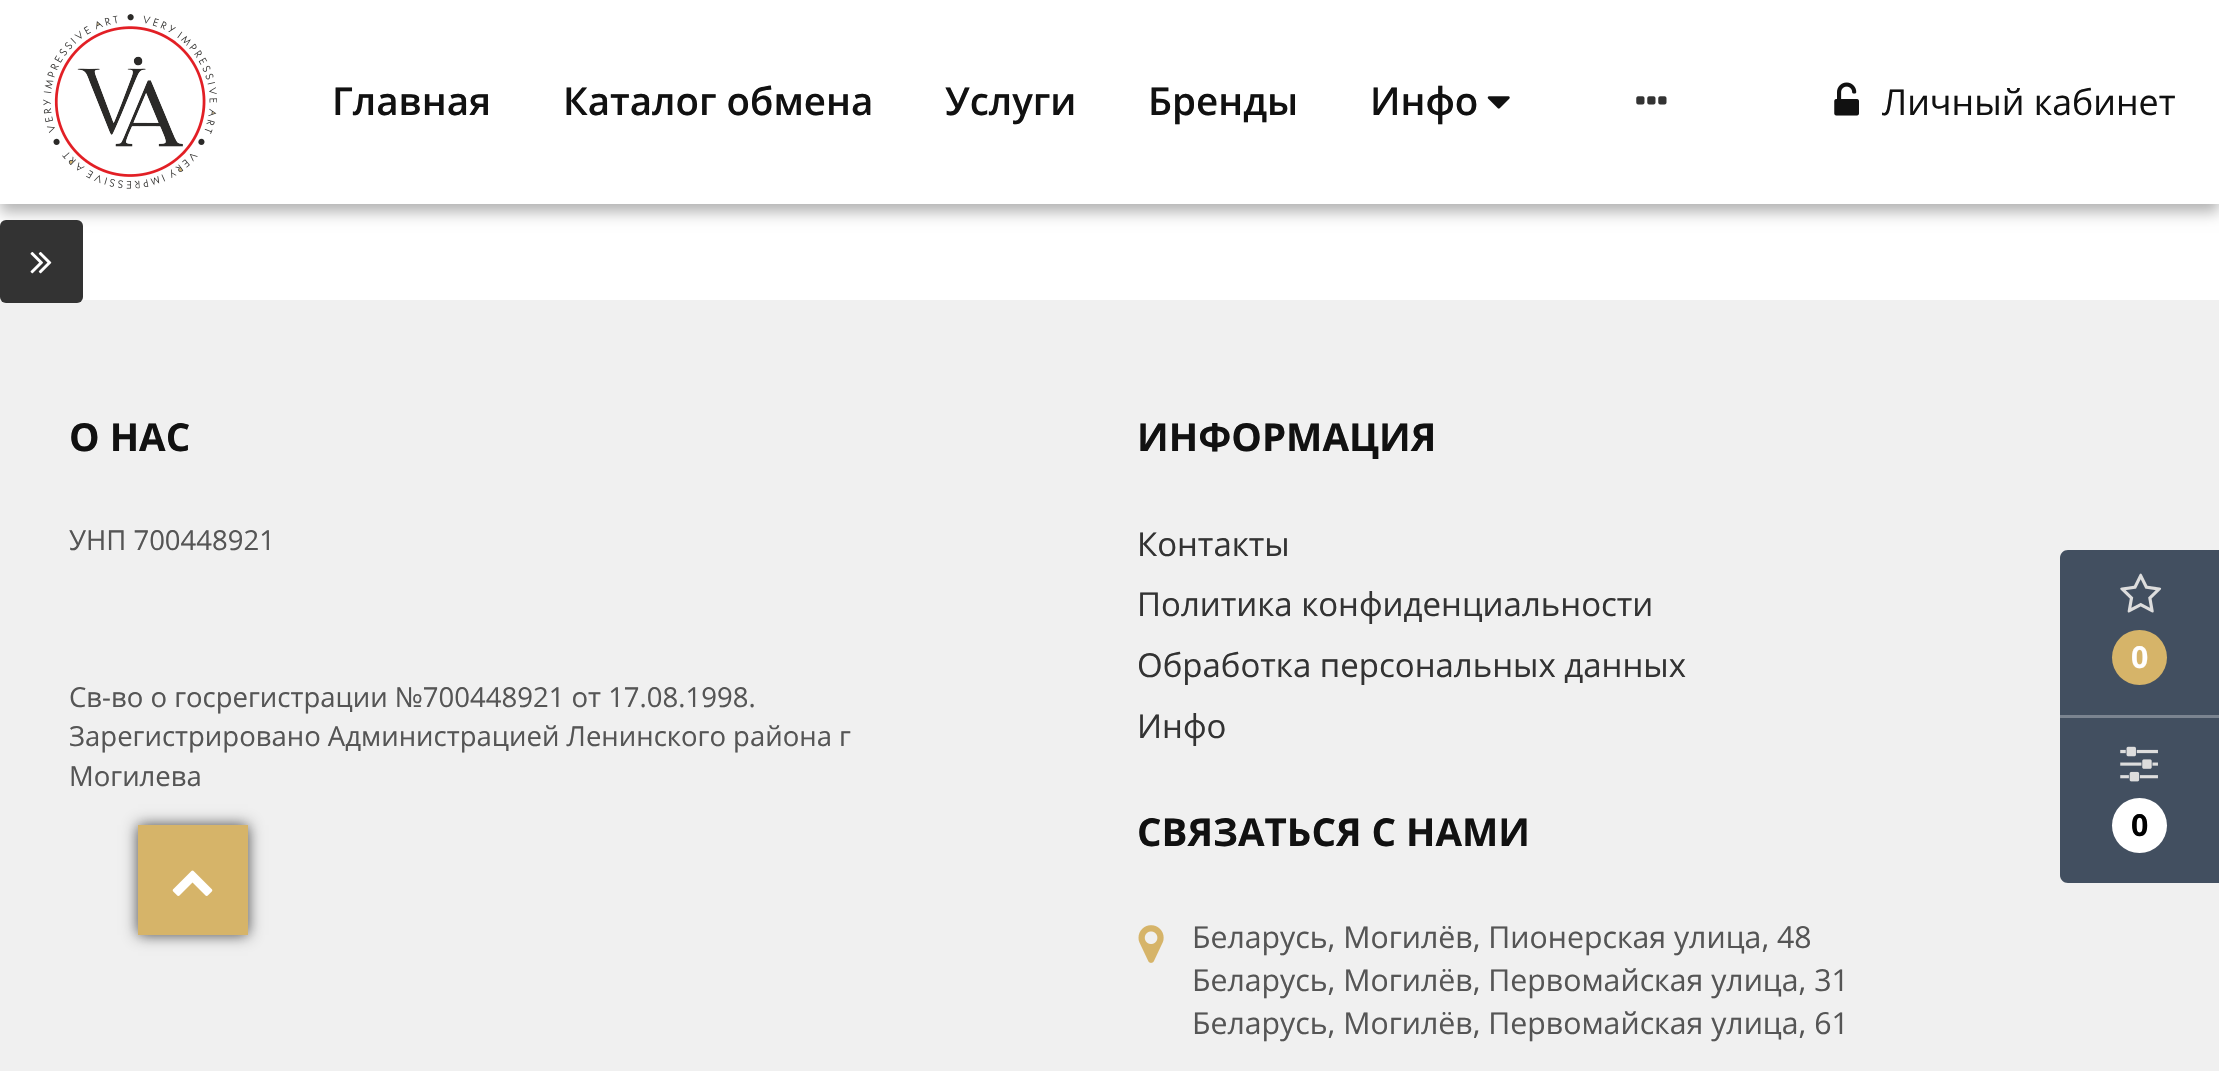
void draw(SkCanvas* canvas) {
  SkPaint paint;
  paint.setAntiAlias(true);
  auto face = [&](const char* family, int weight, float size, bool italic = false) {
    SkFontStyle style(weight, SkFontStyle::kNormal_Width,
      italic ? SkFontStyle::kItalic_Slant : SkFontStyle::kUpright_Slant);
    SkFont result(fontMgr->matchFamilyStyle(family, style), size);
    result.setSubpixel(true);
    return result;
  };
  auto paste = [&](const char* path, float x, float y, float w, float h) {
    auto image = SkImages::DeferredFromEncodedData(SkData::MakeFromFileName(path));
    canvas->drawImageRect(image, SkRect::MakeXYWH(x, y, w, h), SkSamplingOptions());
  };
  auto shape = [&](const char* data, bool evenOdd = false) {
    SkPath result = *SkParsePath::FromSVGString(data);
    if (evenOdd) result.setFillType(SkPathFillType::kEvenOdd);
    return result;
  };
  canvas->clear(0xffffffff);
  paint.setColor(0x4d000000);
  paint.setMaskFilter(SkMaskFilter::MakeBlur(kNormal_SkBlurStyle, 7));
  canvas->drawRect(SkRect::MakeXYWH(0, 8, 2219, 204), paint);
  paint.setMaskFilter(nullptr);
  paint.setColor(0xffffffff);
  canvas->drawRect(SkRect::MakeXYWH(0, 0, 2219, 204), paint);
  paste("img/1.png", 43, 14, 174, 175);
  paste("img/2.png", 1487, 96, 23, 13);
  paste("img/3.png", 1636, 96, 31, 9);
  paste("img/4.png", 1834, 82, 25, 34);
  paint.setColor(0xfff0f0f0);
  canvas->drawRect(SkRect::MakeXYWH(0, 300, 2219, 771), paint);
  paint.setColor(0xff333333);
  canvas->drawRoundRect(SkRect::MakeXYWH(0, 220, 83, 83), 6, 6, paint);
  paste("img/5.png", 30, 252, 22, 22);
  paste("img/6.png", 1138, 925, 26, 38);
  paint.setColor(0xff424f60);
  canvas->drawPath(shape("M2068 550H2219V883H2068C2063.5 883 2060 879.5 2060 875V558C2060 553.5 2063.5 550 2068 550Z"), paint);
  paint.setColor(0xff7b8490);
  canvas->drawRect(SkRect::MakeXYWH(2060, 715, 159, 3), paint);
  paste("img/7.png", 2120, 573, 42, 40);
  paint.setColor(0xffd6b469);
  canvas->drawCircle(2139.5f, 657.5f, 27.5f, paint);
  paste("img/8.png", 2120, 746, 38, 36);
  paint.setColor(0xffffffff);
  canvas->drawCircle(2139.5f, 825.5f, 27.5f, paint);
  paint.setColor(0xb3000000);
  paint.setMaskFilter(SkMaskFilter::MakeBlur(kNormal_SkBlurStyle, 7));
  canvas->drawRect(SkRect::MakeXYWH(138, 825, 110, 110), paint);
  paint.setMaskFilter(nullptr);
  paint.setColor(0xffd6b469);
  canvas->drawRect(SkRect::MakeXYWH(138, 825, 110, 110), paint);
  paste("img/9.png", 172, 870, 41, 26);
  auto f0 = face("Open Sans", 600, 38.5f);
  paint.setColor(0xff111111);
  {
    const struct { const char* s; float x, y; } items[] = {
      {"Главная", 332, 115},
      {"Каталог обмена", 563, 115},
      {"Услуги", 945, 115},
      {"Бренды", 1148, 115},
      {"Инфо", 1370, 115},
    };
    for (auto [s, x, y] : items) {
      canvas->drawString(s, x, y, f0, paint);
    }
  }
  auto f1 = face("Open Sans", 400, 35.75f);
  canvas->drawString("Личный кабинет", 1882, 115, f1, paint);
  auto f2 = face("Open Sans", 700, 38.5f);
  canvas->drawString("О НАС", 69, 451, f2, paint);
  auto f3 = face("Open Sans", 400, 27.5f);
  paint.setColor(0xff555555);
  {
    const struct { const char* s; float x, y; } items[] = {
      {"УНП 700448921", 69, 550},
      {"Св-во о госрегистрации №700448921 от 17.08.1998.", 69, 707},
      {"Зарегистрировано Администрацией Ленинского района г", 69, 746},
      {"Могилева", 69, 786},
    };
    for (auto [s, x, y] : items) {
      canvas->drawString(s, x, y, f3, paint);
    }
  }
  paint.setColor(0xff111111);
  canvas->drawString("ИНФОРМАЦИЯ", 1137, 451, f2, paint);
  auto f4 = face("Open Sans", 400, 33);
  paint.setColor(0xff333333);
  {
    const struct { const char* s; float x, y; } items[] = {
      {"Контакты", 1137, 556},
      {"Политика конфиденциальности", 1137, 616},
      {"Обработка персональных данных", 1137, 677},
      {"Инфо", 1137, 738},
    };
    for (auto [s, x, y] : items) {
      canvas->drawString(s, x, y, f4, paint);
    }
  }
  paint.setColor(0xff111111);
  canvas->drawString("СВЯЗАТЬСЯ С НАМИ", 1137, 846, f2, paint);
  auto f5 = face("Open Sans", 400, 30.25f);
  paint.setColor(0xff555555);
  {
    const struct { const char* s; float x, y; } items[] = {
      {"Беларусь, Могилёв, Пионерская улица, 48", 1192, 948},
      {"Беларусь, Могилёв, Первомайская улица, 31", 1192, 991},
      {"Беларусь, Могилёв, Первомайская улица, 61", 1192, 1034},
    };
    for (auto [s, x, y] : items) {
      canvas->drawString(s, x, y, f5, paint);
    }
  }
  auto f6 = face("Open Sans", 700, 30.25f);
  paint.setColor(0xffffffff);
  canvas->drawString("0", 2131, 668, f6, paint);
  paint.setColor(0xff000000);
  canvas->drawString("0", 2131, 836, f6, paint);
}
